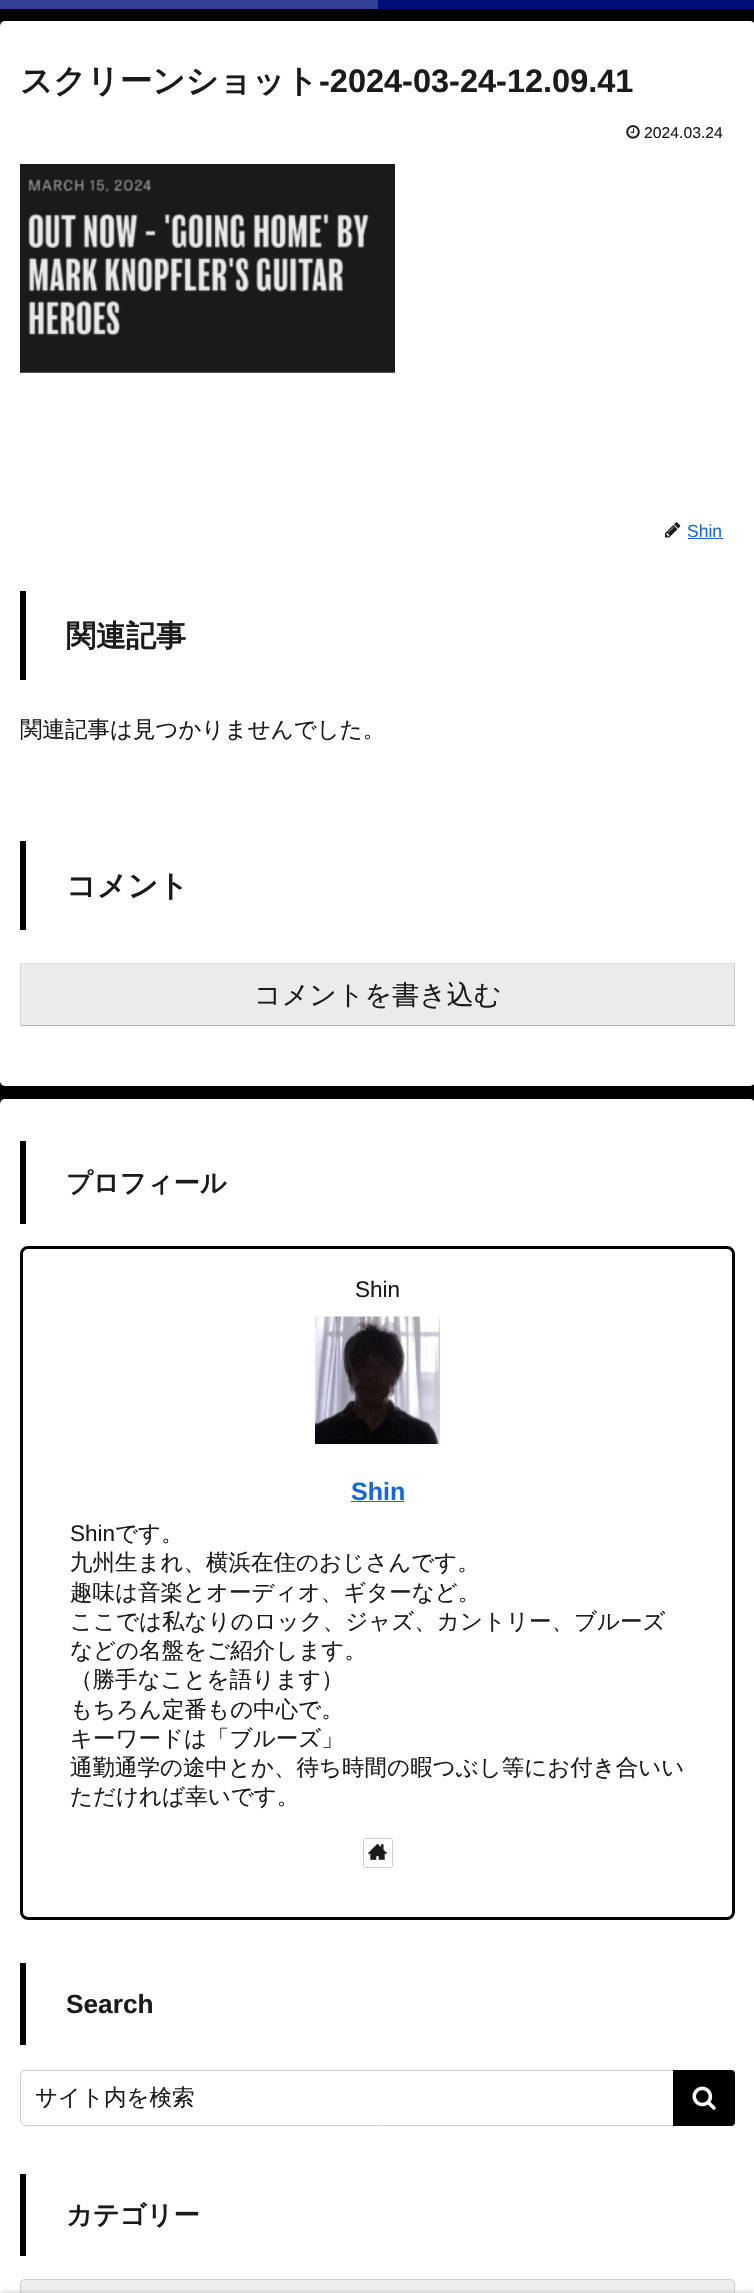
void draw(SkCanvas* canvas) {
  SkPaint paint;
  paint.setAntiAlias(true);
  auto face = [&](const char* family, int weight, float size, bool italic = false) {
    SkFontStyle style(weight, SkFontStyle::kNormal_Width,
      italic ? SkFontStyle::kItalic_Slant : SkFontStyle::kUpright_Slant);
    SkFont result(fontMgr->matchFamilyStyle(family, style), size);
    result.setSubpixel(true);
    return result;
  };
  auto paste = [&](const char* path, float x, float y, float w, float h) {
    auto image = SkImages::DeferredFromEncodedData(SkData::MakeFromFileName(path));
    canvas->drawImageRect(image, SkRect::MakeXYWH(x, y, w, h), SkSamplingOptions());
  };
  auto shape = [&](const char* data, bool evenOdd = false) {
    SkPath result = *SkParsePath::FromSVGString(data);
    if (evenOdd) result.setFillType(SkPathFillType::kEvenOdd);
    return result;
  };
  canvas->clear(0xff000000);
  paint.setColor(0xff000e7a);
  canvas->drawRect(SkRect::MakeXYWH(378, 0, 376, 9), paint);
  paint.setColor(0xff333e95);
  canvas->drawRect(SkRect::MakeXYWH(0, 0, 378, 9), paint);
  paint.setColor(0xffffffff);
  canvas->drawRoundRect(SkRect::MakeXYWH(0, 21, 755, 1065), 5, 5, paint);
  paste("img/1.png", 626, 125, 14, 14);
  paste("img/2.png", 20, 164, 375, 209);
  paste("img/3.png", 665, 522, 16, 16);
  {
    const struct { float x, y, w, h; SkColor color; } items[] = {
      {688, 538, 35, 1, 0xff1967d2},
      {20, 591, 6, 89, 0xff000000},
      {20, 841, 6, 89, 0xff000000},
      {21, 964, 713, 61, 0xffebebeb},
      {20, 963, 715, 1, 0xffe3e3e3},
      {734, 963, 1, 63, 0xffcecece},
      {20, 1025, 715, 1, 0xffb4b4b4},
      {20, 963, 1, 63, 0xffd6d6d6},
    };
    for (auto [x, y, w, h, color] : items) {
      paint.setColor(color);
      canvas->drawRect(SkRect::MakeXYWH(x, y, w, h), paint);
    }
  }
  paint.setColor(0xffffffff);
  canvas->drawRoundRect(SkRect::MakeXYWH(0, 1099, 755, 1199), 5, 5, paint);
  paint.setColor(0xff000000);
  canvas->drawRect(SkRect::MakeXYWH(20, 1141, 6, 83), paint);
  paint.setStroke(true);
  paint.setStrokeWidth(3);
  canvas->drawRoundRect(SkRect::MakeXYWH(21.5f, 1247.5f, 712, 671), 6.5f, 6.5f, paint);
  paste("img/4.png", 315, 1316, 125, 128);
  paint.setStroke(false);
  paint.setColor(0xff1967d2);
  canvas->drawRect(SkRect::MakeXYWH(351, 1501, 53, 1), paint);
  paint.setStroke(true);
  paint.setStrokeWidth(1);
  paint.setColor(0xffcccccc);
  canvas->drawRoundRect(SkRect::MakeXYWH(363.5f, 1838.5f, 29, 29), 2, 2, paint);
  paste("img/5.png", 367, 1843, 21, 17);
  paint.setStroke(false);
  paint.setColor(0xff000000);
  canvas->drawRect(SkRect::MakeXYWH(20, 1963, 6, 82), paint);
  paint.setStroke(true);
  paint.setColor(0xffcccccc);
  canvas->drawRoundRect(SkRect::MakeXYWH(20.5f, 2070.5f, 714, 55), 4.5f, 4.5f, paint);
  paint.setStroke(false);
  paint.setColor(0xff000000);
  canvas->drawPath(shape("M674.5 2071.5H731C732.5 2071.5 733.5 2072.5 733.5 2074V2122C733.5 2123.5 732.5 2124.5 731 2124.5H674.5Z"), paint);
  paint.setStroke(true);
  paint.setStrokeWidth(3);
  canvas->drawPath(shape("M674.5 2071.5H731C732.5 2071.5 733.5 2072.5 733.5 2074V2122C733.5 2123.5 732.5 2124.5 731 2124.5H674.5Z"), paint);
  paste("img/6.png", 692, 2086, 24, 24);
  paint.setStroke(false);
  canvas->drawRect(SkRect::MakeXYWH(20, 2174, 6, 82), paint);
  paint.setColor(0xffefefef);
  canvas->drawRoundRect(SkRect::MakeXYWH(20.5f, 2279.5f, 714, 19), 4.5f, 4.5f, paint);
  paint.setStroke(true);
  paint.setStrokeWidth(1);
  paint.setColor(0xffcccccc);
  canvas->drawRoundRect(SkRect::MakeXYWH(20.5f, 2279.5f, 714, 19), 4.5f, 4.5f, paint);
  paint.setStroke(false);
  paint.setColor(0xffa9a9a9);
  paint.setMaskFilter(SkMaskFilter::MakeBlur(kNormal_SkBlurStyle, 3));
  canvas->drawRect(SkRect::MakeXYWH(0, 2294, 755, 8), paint);
  paint.setMaskFilter(nullptr);
  auto f0 = face("WenQuanYi Zen Hei", 700, 32.5f);
  paint.setColor(0xff1c1a1a);
  canvas->drawString("スクリーンショット", 20, 92, f0, paint);
  auto f1 = face("Liberation Sans", 700, 32.5f);
  canvas->drawString("-2024-03-24-12.09.41", 319, 92, f1, paint);
  auto f2 = face("Liberation Sans", 400, 15.75f);
  canvas->drawString("2024.03.24", 644, 138, f2, paint);
  auto f3 = face("Liberation Sans", 400, 17.5f);
  paint.setColor(0xff1967d2);
  canvas->drawString("Shin", 687, 537, f3, paint);
  auto f4 = face("WenQuanYi Zen Hei", 700, 30);
  paint.setColor(0xff1c1a1a);
  canvas->drawString("関連記事", 66, 646, f4, paint);
  auto f5 = face("WenQuanYi Zen Hei", 500, 22.5f);
  canvas->drawString("関連記事は見つかりませんでした。", 20, 737, f5, paint);
  canvas->drawString("コメント", 66, 896, f4, paint);
  auto f6 = face("WenQuanYi Zen Hei", 500, 27);
  canvas->drawString("コメントを書き込む", 254, 1004, f6, paint);
  auto f7 = face("WenQuanYi Zen Hei", 700, 26.25f);
  canvas->drawString("プロフィール", 66, 1192, f7, paint);
  auto f8 = face("Liberation Sans", 400, 22.5f);
  canvas->drawString("Shin", 355, 1297, f8, paint);
  auto f9 = face("Liberation Sans", 700, 25);
  paint.setColor(0xff1967d2);
  canvas->drawString("Shin", 351, 1500, f9, paint);
  paint.setColor(0xff1c1a1a);
  canvas->drawString("Shin", 70, 1541, f8, paint);
  {
    const struct { const char* s; float x, y; } items[] = {
      {"です。", 115, 1541},
      {"九州生まれ、横浜在住のおじさんです。", 70, 1570},
      {"趣味は音楽とオーディオ、ギターなど。", 70, 1600},
      {"ここでは私なりのロック、ジャズ、カントリー、ブルーズ", 70, 1629},
      {"などの名盤をご紹介します。", 70, 1658},
      {"（勝手なことを語ります）", 70, 1687},
      {"もちろん定番もの中心で。", 70, 1717},
      {"キーワードは「ブルーズ」", 70, 1746},
      {"通勤通学の途中とか、待ち時間の暇つぶし等にお付き合いい", 70, 1775},
      {"ただければ幸いです。", 70, 1804},
    };
    for (auto [s, x, y] : items) {
      canvas->drawString(s, x, y, f5, paint);
    }
  }
  auto f10 = face("Liberation Sans", 700, 26.25f);
  canvas->drawString("Search", 66, 2013, f10, paint);
  canvas->drawString("サイト内を検索", 35, 2105, f5, paint);
  canvas->drawString("カテゴリー", 66, 2224, f7, paint);
}
